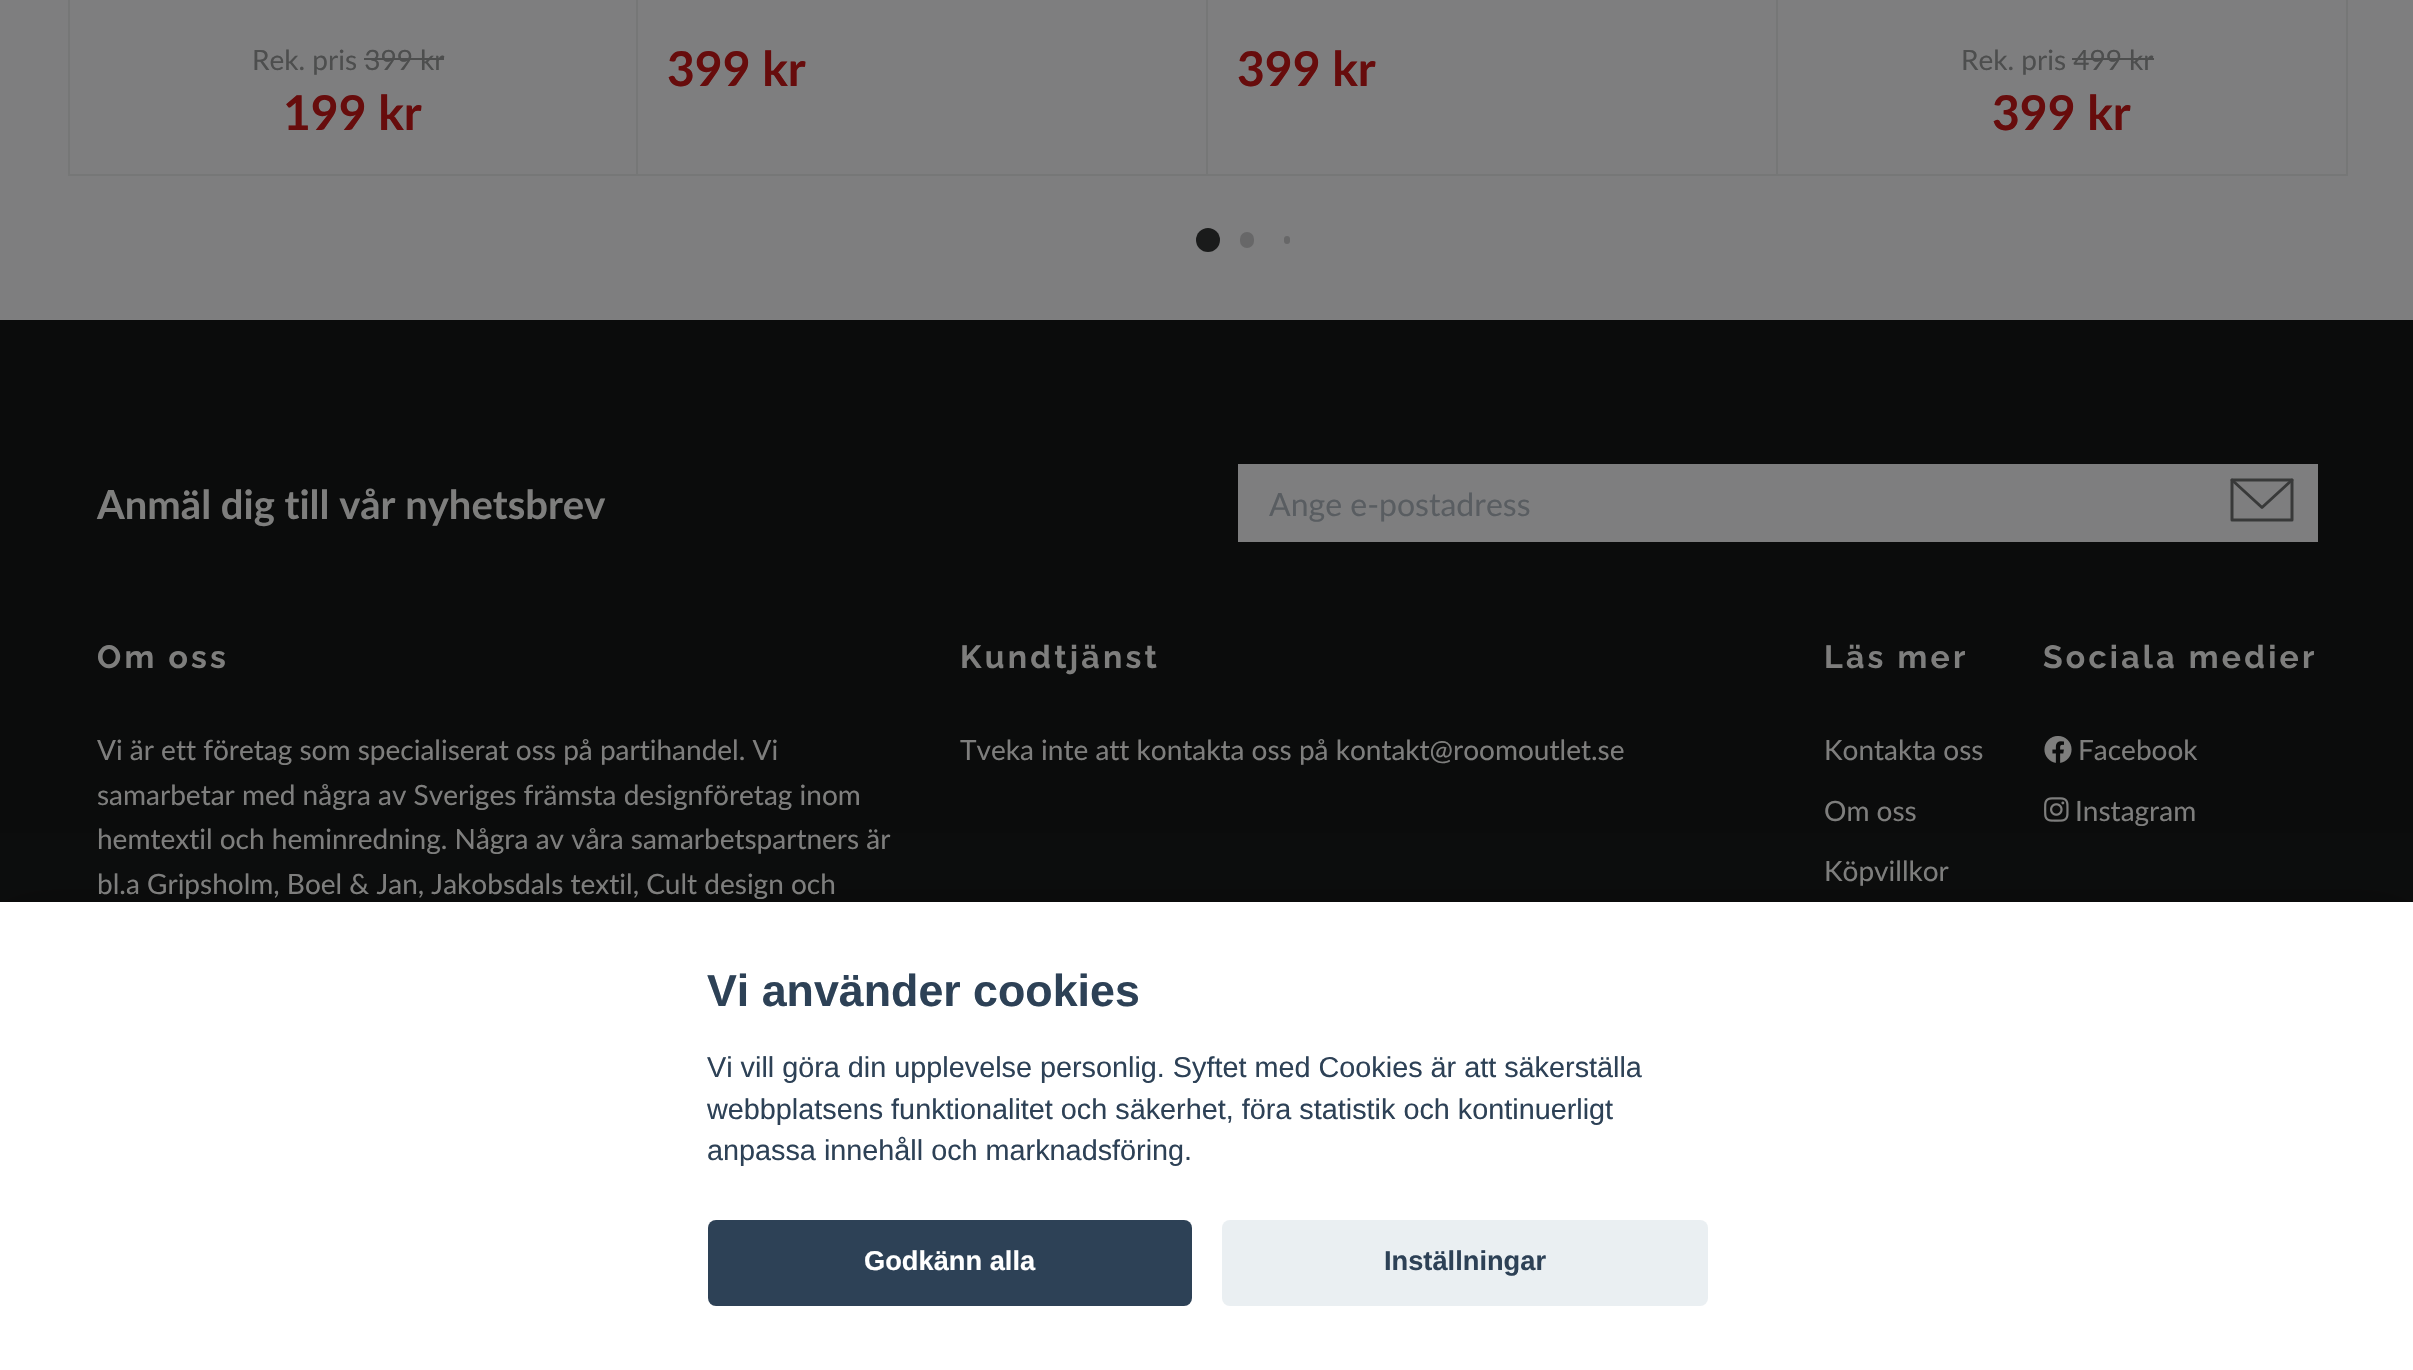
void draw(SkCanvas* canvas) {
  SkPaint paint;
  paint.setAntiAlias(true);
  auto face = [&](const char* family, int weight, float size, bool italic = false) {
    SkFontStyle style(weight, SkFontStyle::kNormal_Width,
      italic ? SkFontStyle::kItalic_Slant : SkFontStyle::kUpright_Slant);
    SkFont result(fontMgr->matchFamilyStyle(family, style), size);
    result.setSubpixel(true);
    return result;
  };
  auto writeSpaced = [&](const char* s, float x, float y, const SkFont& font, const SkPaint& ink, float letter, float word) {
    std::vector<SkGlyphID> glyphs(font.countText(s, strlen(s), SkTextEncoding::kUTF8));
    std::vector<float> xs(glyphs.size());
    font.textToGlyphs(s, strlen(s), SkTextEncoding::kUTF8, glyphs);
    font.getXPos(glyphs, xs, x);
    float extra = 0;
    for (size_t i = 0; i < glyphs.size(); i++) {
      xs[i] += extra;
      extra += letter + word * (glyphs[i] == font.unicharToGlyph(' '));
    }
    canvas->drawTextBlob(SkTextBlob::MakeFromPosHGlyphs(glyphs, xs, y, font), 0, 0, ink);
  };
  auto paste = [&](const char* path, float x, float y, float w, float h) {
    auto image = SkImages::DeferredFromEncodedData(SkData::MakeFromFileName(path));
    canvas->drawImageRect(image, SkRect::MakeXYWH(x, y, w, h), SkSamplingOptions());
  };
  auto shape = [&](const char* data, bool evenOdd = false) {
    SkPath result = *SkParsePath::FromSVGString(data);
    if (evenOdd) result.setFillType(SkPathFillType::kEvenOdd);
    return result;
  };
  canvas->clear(0xff7e7e7f);
  paint.setStroke(true);
  paint.setStrokeWidth(2);
  paint.setColor(0xff767777);
  canvas->drawRect(SkRect::MakeXYWH(69, -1, 568, 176), paint);
  paint.setStroke(false);
  {
    const struct { float x, y, w, h; SkColor color; } items[] = {
      {364, 58, 80, 2, 0xff4d4e4e},
      {1206, 0, 2, 176, 0xff767777},
      {638, 174, 570, 2, 0xff767777},
      {1776, 0, 2, 176, 0xff767777},
      {1208, 174, 570, 2, 0xff767777},
      {2346, 0, 2, 176, 0xff767777},
      {1778, 174, 570, 2, 0xff767777},
      {2072, 58, 82, 2, 0xff4d4e4e},
    };
    for (auto [x, y, w, h, color] : items) {
      paint.setColor(color);
      canvas->drawRect(SkRect::MakeXYWH(x, y, w, h), paint);
    }
  }
  paint.setColor(0xff1a1b1b);
  canvas->drawCircle(1208, 240, 12, paint);
  paint.setColor(0xff676768);
  canvas->drawRoundRect(SkRect::MakeXYWH(1240, 232, 14, 16), 7, 7, paint);
  canvas->drawRoundRect(SkRect::MakeXYWH(1284, 236, 6, 8), 3, 3, paint);
  paint.setColor(0xff0b0c0c);
  canvas->drawRect(SkRect::MakeXYWH(0, 320, 2413, 582), paint);
  paint.setColor(0xff7e7e7f);
  canvas->drawRect(SkRect::MakeXYWH(1238, 464, 1080, 78), paint);
  paint.setStroke(true);
  paint.setStrokeWidth(3);
  paint.setStrokeCap(SkPaint::kRound_Cap);
  paint.setStrokeJoin(SkPaint::kRound_Join);
  paint.setColor(0xff383939);
  canvas->drawPath(shape("M2232 480L2262 507.5L2292 480"), paint);
  canvas->drawPath(shape("M2232 480H2292V520H2232Z"), paint);
  paste("img/1.png", 2044, 736, 28, 27);
  paste("img/2.png", 2044, 797, 25, 25);
  paint.setStroke(false);
  paint.setColor(0x47020203);
  paint.setMaskFilter(SkMaskFilter::MakeBlur(kNormal_SkBlurStyle, 30));
  canvas->drawRect(SkRect::MakeXYWH(0, 922, 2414, 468), paint);
  paint.setMaskFilter(nullptr);
  paint.setColor(0xffffffff);
  canvas->drawRect(SkRect::MakeXYWH(0, 902, 2413, 468), paint);
  paint.setColor(0xff2d4156);
  canvas->drawRoundRect(SkRect::MakeXYWH(708, 1220, 484, 86), 8, 8, paint);
  paint.setColor(0xffeaeff2);
  canvas->drawRoundRect(SkRect::MakeXYWH(1222, 1220, 486, 86), 8, 8, paint);
  auto f0 = face("Lato", 400, 28);
  paint.setColor(0xff4d4e4e);
  canvas->drawString("Rek. pris 399 kr", 252, 70, f0, paint);
  auto f1 = face("Lato", 700, 48);
  paint.setColor(0xff670c0c);
  {
    const struct { const char* s; float x, y; } items[] = {
      {"199 kr", 283, 130},
      {"399 kr", 667, 86},
      {"399 kr", 1237, 86},
    };
    for (auto [s, x, y] : items) {
      canvas->drawString(s, x, y, f1, paint);
    }
  }
  paint.setColor(0xff4d4e4e);
  canvas->drawString("Rek. pris 499 kr", 1961, 70, f0, paint);
  paint.setColor(0xff670c0c);
  canvas->drawString("399 kr", 1992, 130, f1, paint);
  auto f2 = face("Lato", 700, 40);
  paint.setColor(0xff7e7e7d);
  canvas->drawString("Anmäl dig till vår nyhetsbrev", 97, 519, f2, paint);
  auto f3 = face("Lato", 400, 32);
  paint.setColor(0xff595d61);
  canvas->drawString("Ange e-postadress", 1269, 516, f3, paint);
  auto f4 = face("Raleway", 700, 32);
  paint.setColor(0xff7e7e7d);
  writeSpaced("Om oss", 97, 668, f4, paint, 3.25f, 0);
  {
    const struct { const char* s; float x, y; } items[] = {
      {"Vi är ett företag som specialiserat oss på partihandel. Vi", 97, 760},
      {"samarbetar med några av Sveriges främsta designföretag inom", 97, 805},
      {"hemtextil och heminredning. Några av våra samarbetspartners är", 97, 849},
      {"bl.a Gripsholm, Boel & Jan, Jakobsdals textil, Cult design och", 97, 894},
    };
    for (auto [s, x, y] : items) {
      canvas->drawString(s, x, y, f0, paint);
    }
  }
  writeSpaced("Kundtjänst", 960, 668, f4, paint, 3.25f, 0);
  canvas->drawString("Tveka inte att kontakta oss på kontakt@roomoutlet.se", 960, 760, f0, paint);
  writeSpaced("Läs mer", 1824, 668, f4, paint, 3.25f, 0);
  {
    const struct { const char* s; float x, y; } items[] = {
      {"Kontakta oss", 1824, 760},
      {"Om oss", 1824, 821},
      {"Köpvillkor", 1824, 881},
    };
    for (auto [s, x, y] : items) {
      canvas->drawString(s, x, y, f0, paint);
    }
  }
  writeSpaced("Sociala medier", 2043, 668, f4, paint, 3.25f, 0);
  canvas->drawString("Facebook", 2078, 760, f0, paint);
  canvas->drawString("Instagram", 2075, 821, f0, paint);
  auto f5 = face("Liberation Sans", 700, 44.75f);
  paint.setColor(0xff2d4156);
  canvas->drawString("Vi använder cookies", 707, 1006, f5, paint);
  auto f6 = face("Liberation Sans", 400, 28.8f);
  {
    const struct { const char* s; float x, y; } items[] = {
      {"Vi vill göra din upplevelse personlig. Syftet med Cookies är att säkerställa", 707, 1077},
      {"webbplatsens funktionalitet och säkerhet, föra statistik och kontinuerligt", 707, 1119},
      {"anpassa innehåll och marknadsföring.", 707, 1160},
    };
    for (auto [s, x, y] : items) {
      canvas->drawString(s, x, y, f6, paint);
    }
  }
  auto f7 = face("Liberation Sans", 700, 27.25f);
  paint.setColor(0xffffffff);
  canvas->drawString("Godkänn alla", 864, 1270, f7, paint);
  paint.setColor(0xff2d4156);
  canvas->drawString("Inställningar", 1384, 1270, f7, paint);
}
